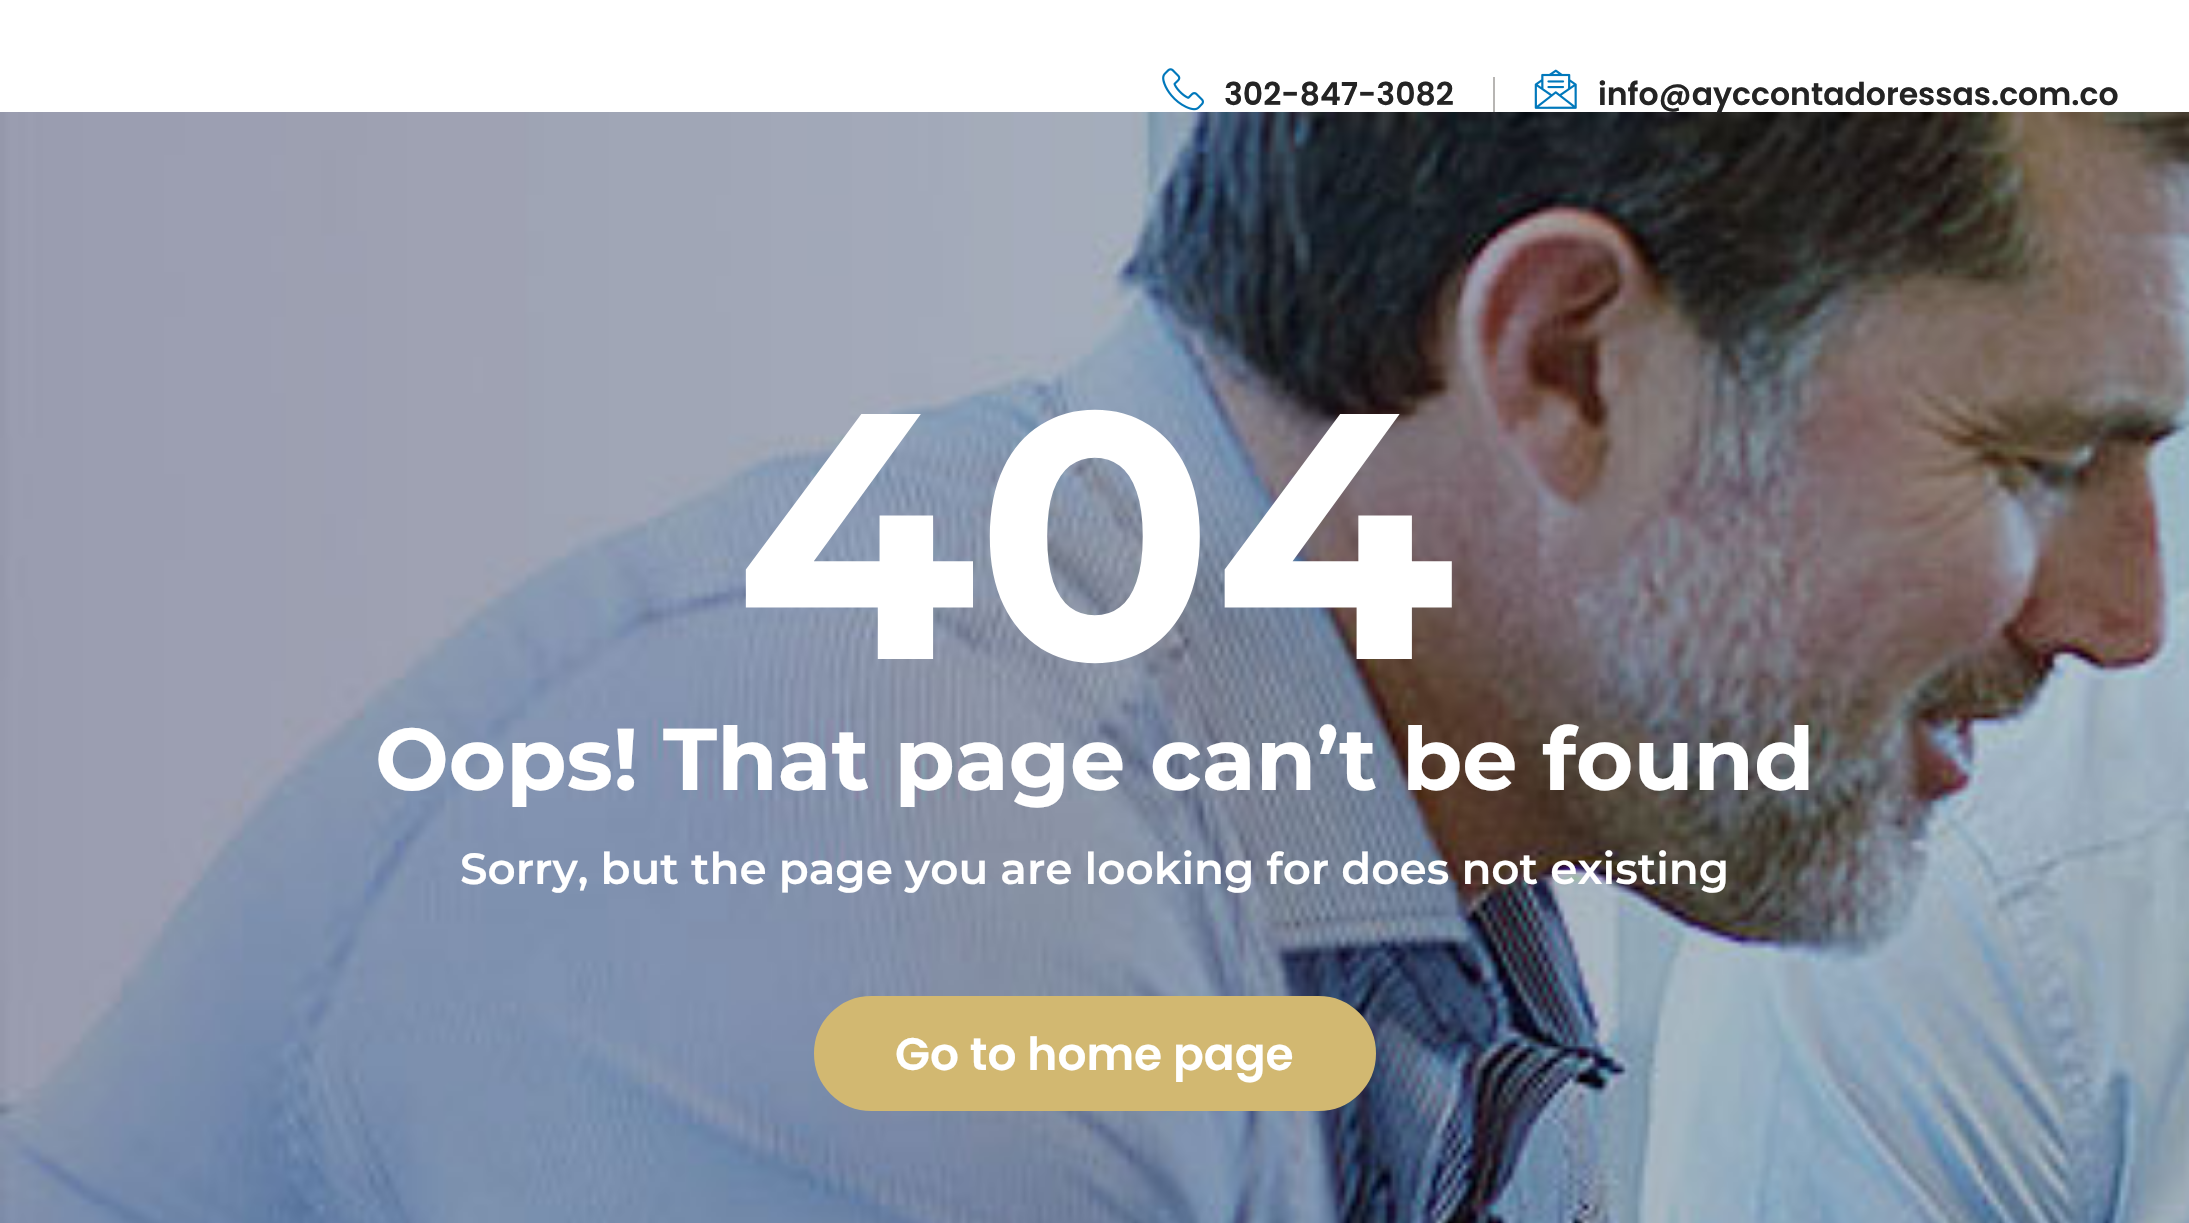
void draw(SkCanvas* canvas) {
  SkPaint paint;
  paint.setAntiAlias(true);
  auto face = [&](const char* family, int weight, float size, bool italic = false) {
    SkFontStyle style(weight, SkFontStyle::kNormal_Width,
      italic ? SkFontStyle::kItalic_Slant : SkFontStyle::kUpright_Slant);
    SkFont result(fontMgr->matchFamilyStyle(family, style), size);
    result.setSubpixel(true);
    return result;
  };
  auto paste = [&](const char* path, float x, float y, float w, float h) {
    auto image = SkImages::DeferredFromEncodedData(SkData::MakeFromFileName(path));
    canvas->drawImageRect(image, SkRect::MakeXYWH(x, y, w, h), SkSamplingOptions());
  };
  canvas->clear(0xffffffff);
  paint.setColor(0xffb7b5b3);
  canvas->drawRect(SkRect::MakeXYWH(1493, 77, 2, 35), paint);
  paste("img/1.png", 1162, 68, 42, 43);
  paste("img/2.png", 1534, 69, 43, 40);
  paste("img/3.png", 0, 112, 2189, 1111);
  paint.setColor(0xffd2b871);
  canvas->drawRoundRect(SkRect::MakeXYWH(816, 998, 558, 111), 55.5f, 55.5f, paint);
  paint.setStroke(true);
  paint.setStrokeWidth(4);
  canvas->drawRoundRect(SkRect::MakeXYWH(816, 998, 558, 111), 55.5f, 55.5f, paint);
  auto f0 = face("Poppins", 600, 31.5f);
  paint.setStroke(false);
  paint.setColor(0xff242424);
  canvas->drawString("302-847-3082", 1224, 105, f0, paint);
  canvas->drawString("info@ayccontadoressas.com.co", 1598, 105, f0, paint);
  auto f1 = face("Montserrat", 700, 350);
  paint.setColor(0xffffffff);
  canvas->drawString("404", 735, 659, f1, paint);
  auto f2 = face("Montserrat", 700, 87.5f);
  canvas->drawString("Oops! That page can’t be found", 375, 790, f2, paint);
  auto f3 = face("Montserrat", 600, 43.75f);
  canvas->drawString("Sorry, but the page you are looking for does not existing", 460, 884, f3, paint);
  auto f4 = face("Poppins", 600, 45.5f);
  canvas->drawString("Go to home page", 895, 1070, f4, paint);
}
